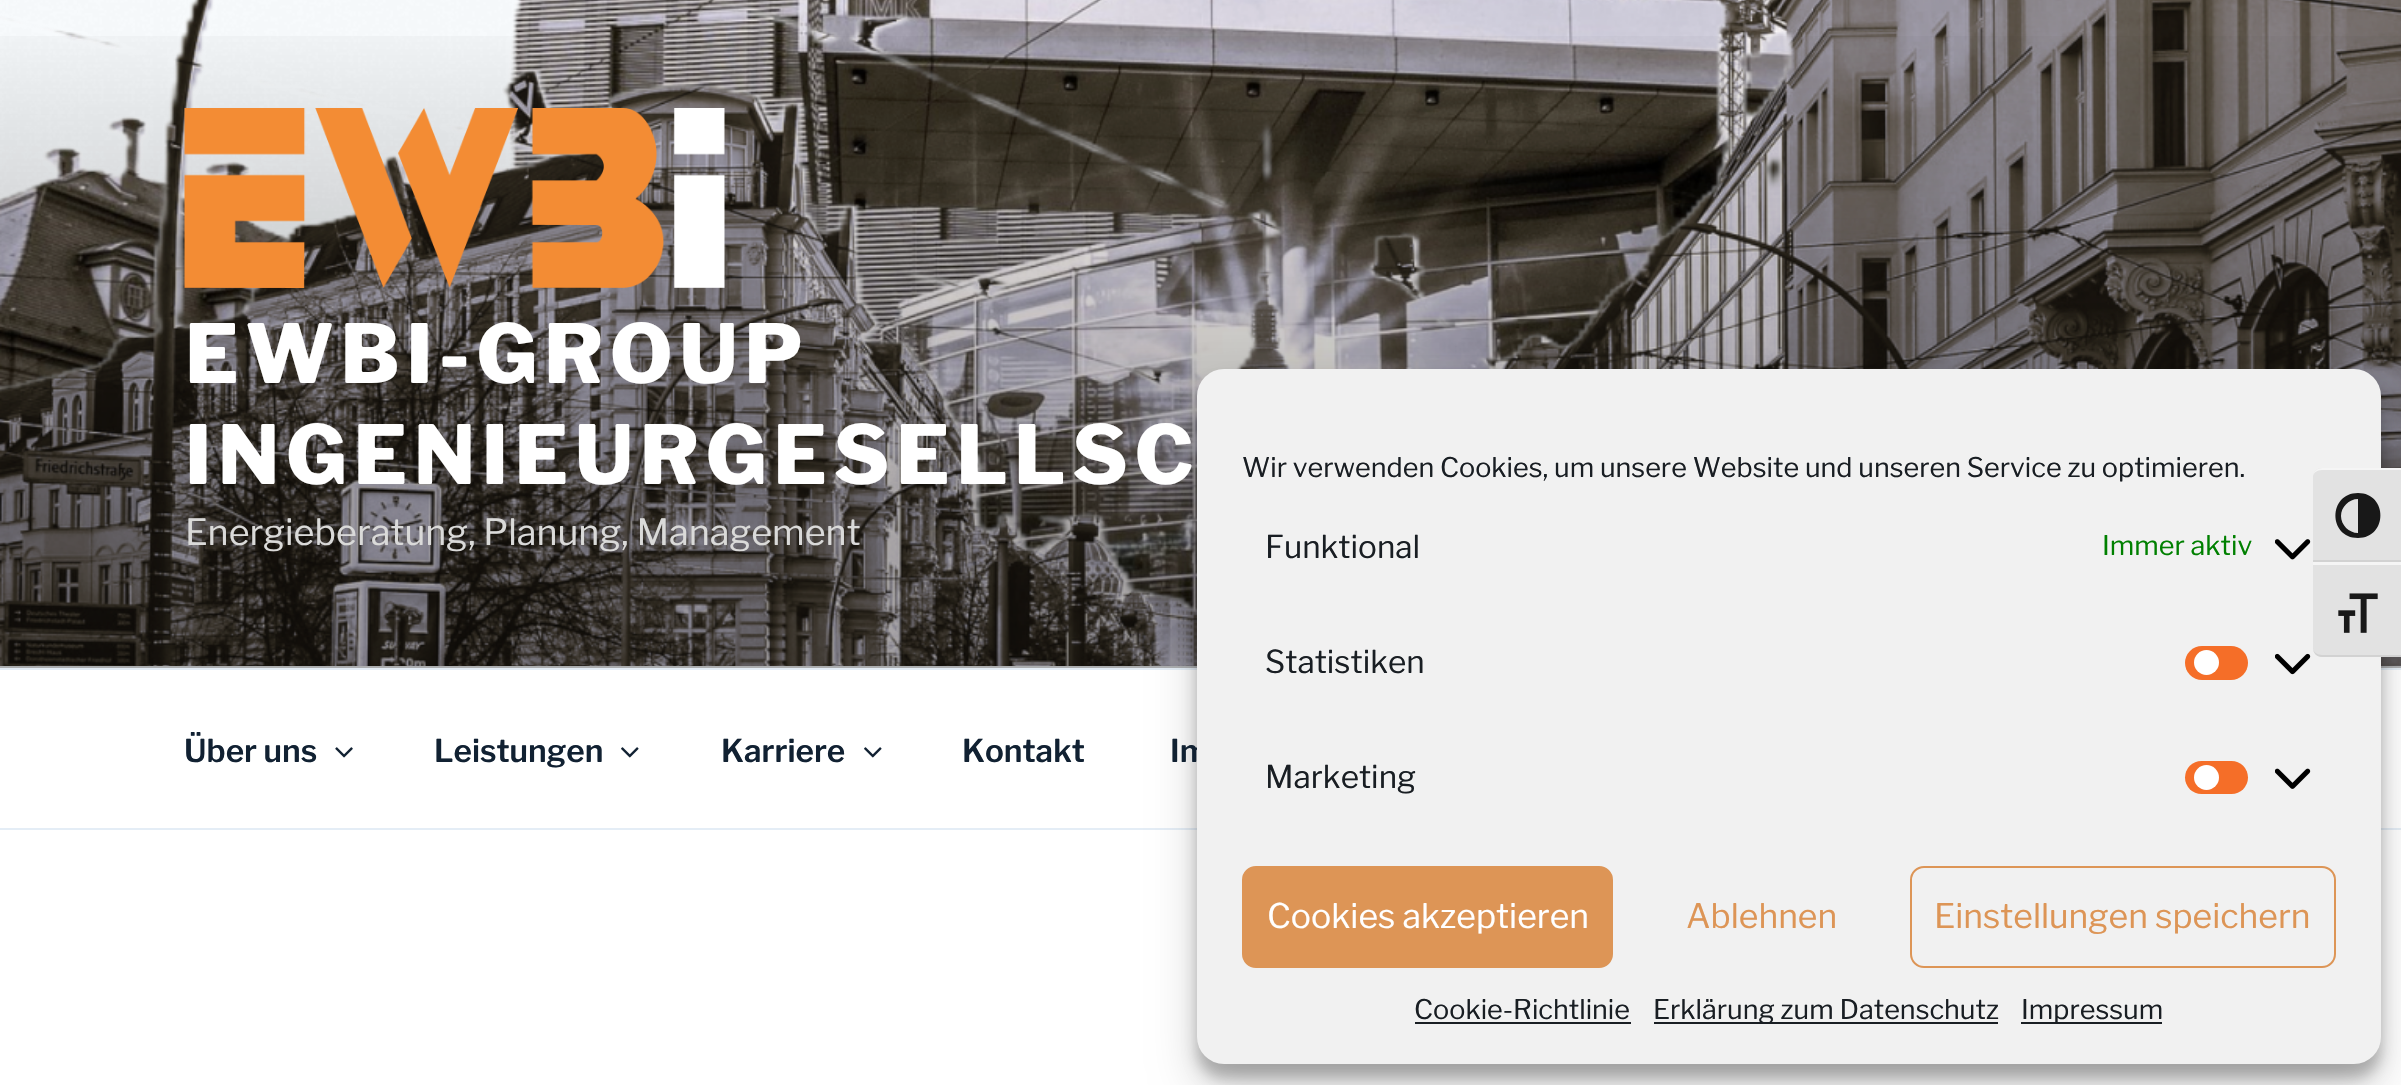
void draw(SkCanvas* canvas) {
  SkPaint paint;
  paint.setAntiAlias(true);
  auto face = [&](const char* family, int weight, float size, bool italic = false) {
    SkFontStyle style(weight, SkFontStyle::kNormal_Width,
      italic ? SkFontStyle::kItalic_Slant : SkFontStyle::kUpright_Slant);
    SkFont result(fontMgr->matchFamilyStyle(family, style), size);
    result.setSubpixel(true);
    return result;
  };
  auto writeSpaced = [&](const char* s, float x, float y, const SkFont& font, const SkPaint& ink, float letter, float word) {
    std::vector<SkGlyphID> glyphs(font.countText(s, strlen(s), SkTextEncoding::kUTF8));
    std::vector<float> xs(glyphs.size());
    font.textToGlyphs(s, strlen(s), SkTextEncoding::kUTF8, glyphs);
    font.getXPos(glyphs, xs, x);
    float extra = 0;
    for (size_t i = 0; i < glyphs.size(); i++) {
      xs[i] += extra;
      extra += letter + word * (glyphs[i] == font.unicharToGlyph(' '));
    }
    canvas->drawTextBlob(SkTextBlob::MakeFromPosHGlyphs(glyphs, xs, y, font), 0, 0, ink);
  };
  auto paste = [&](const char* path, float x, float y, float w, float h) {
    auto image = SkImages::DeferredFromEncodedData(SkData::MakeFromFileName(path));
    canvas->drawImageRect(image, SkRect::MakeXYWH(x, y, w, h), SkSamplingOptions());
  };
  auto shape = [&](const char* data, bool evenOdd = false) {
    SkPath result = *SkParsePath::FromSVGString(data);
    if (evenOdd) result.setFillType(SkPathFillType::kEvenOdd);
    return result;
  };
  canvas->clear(0xffffffff);
  paint.setColor(0xfff7fafc);
  canvas->drawRect(SkRect::MakeXYWH(0, 0, 2401, 668), paint);
  paste("img/1.png", 0, 0, 2401, 666);
  {
    const SkColor colors[] = {0x00000000, 0x4d000000, 0x4d000000};
    const float stops[] = {0, 0.75f, 1};
    const SkPoint ends[] = {{1202, 0}, {1202, 668}};
    paint.setShader(SkGradientShader::MakeLinear(ends, colors, stops, 3, SkTileMode::kClamp));
    paint.setAlpha(255);
  }
  canvas->drawRect(SkRect::MakeXYWH(0, 36, 2401, 632), paint);
  paste("img/2.png", 184, 108, 541, 180);
  paint.setShader(nullptr);
  paint.setColor(0xffe4edf6);
  canvas->drawRect(SkRect::MakeXYWH(0, 668, 2401, 2), paint);
  canvas->drawRect(SkRect::MakeXYWH(0, 828, 2401, 2), paint);
  paste("img/3.png", 335, 747, 18, 11);
  paste("img/4.png", 621, 747, 18, 11);
  paste("img/4.png", 864, 747, 18, 11);
  paint.setColor(0x3b000000);
  paint.setMaskFilter(SkMaskFilter::MakeBlur(kNormal_SkBlurStyle, 7));
  canvas->drawRoundRect(SkRect::MakeXYWH(1197, 383, 1184, 695), 27, 27, paint);
  paint.setMaskFilter(nullptr);
  paint.setColor(0x30000000);
  paint.setMaskFilter(SkMaskFilter::MakeBlur(kNormal_SkBlurStyle, 22.5f));
  canvas->drawRoundRect(SkRect::MakeXYWH(1197, 392, 1184, 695), 27, 27, paint);
  paint.setMaskFilter(nullptr);
  auto f0 = face("Libre Franklin", 100, 81);
  paint.setColor(0xffffffff);
  writeSpaced("EWBI-GROUP", 185, 383, f0, paint, 6.5f, 0);
  writeSpaced("INGENIEURGESELLSC", 185, 484, f0, paint, 6.5f, 0);
  auto f1 = face("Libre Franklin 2", 100, 36);
  paint.setColor(0xffdadad9);
  canvas->drawString("Energieberatung, Planung, Management", 185, 545, f1, paint);
  auto f2 = face("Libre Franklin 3", 100, 31.5f);
  paint.setColor(0xff112132);
  {
    const struct { const char* s; float x, y; } items[] = {
      {"Über uns", 184, 762},
      {"Leistungen", 434, 762},
      {"Karriere", 721, 762},
      {"Kontakt", 962, 762},
      {"Im", 1170, 762},
    };
    for (auto [s, x, y] : items) {
      canvas->drawString(s, x, y, f2, paint);
    }
  }
  paint.setColor(0xfff1f1f1);
  canvas->drawRoundRect(SkRect::MakeXYWH(1197, 369, 1184, 695), 27, 27, paint);
  auto f3 = face("Libre Franklin 2", 100, 27);
  paint.setColor(0xff191e23);
  canvas->drawString("Wir verwenden Cookies, um unsere Website und unseren Service zu optimieren.", 1242, 477, f3, paint);
  auto f4 = face("Libre Franklin 2", 100, 31.5f);
  canvas->drawString("Funktional", 1265, 558, f4, paint);
  paint.setColor(0xff008000);
  canvas->drawString("Immer aktiv", 2102, 555, f3, paint);
  paste("img/5.png", 2275, 539, 36, 21);
  paint.setColor(0xff191e23);
  canvas->drawString("Statistiken", 1265, 673, f4, paint);
  paint.setColor(0xfff56e28);
  canvas->drawRoundRect(SkRect::MakeXYWH(2185, 646, 63, 34), 17, 17, paint);
  paint.setColor(0xffffffff);
  canvas->drawCircle(2206.5f, 662.5f, 12.5f, paint);
  paste("img/6.png", 2275, 653, 36, 22);
  paint.setColor(0xff191e23);
  canvas->drawString("Marketing", 1265, 788, f4, paint);
  paint.setColor(0xfff56e28);
  canvas->drawRoundRect(SkRect::MakeXYWH(2185, 761, 63, 33), 16.5f, 16.5f, paint);
  paint.setColor(0xffffffff);
  canvas->drawCircle(2206.5f, 777.5f, 12.5f, paint);
  paste("img/7.png", 2275, 768, 36, 21);
  paint.setColor(0xffdd9556);
  canvas->drawRoundRect(SkRect::MakeXYWH(1243, 867, 369, 100), 13, 13, paint);
  paint.setStroke(true);
  paint.setStrokeWidth(2);
  canvas->drawRoundRect(SkRect::MakeXYWH(1243, 867, 369, 100), 13, 13, paint);
  auto f5 = face("Libre Franklin 2", 100, 33.75f);
  paint.setStroke(false);
  paint.setColor(0xffffffff);
  canvas->drawString("Cookies akzeptieren", 1267, 928, f5, paint);
  paint.setColor(0xffdd9556);
  canvas->drawString("Ablehnen", 1686, 928, f5, paint);
  paint.setStroke(true);
  canvas->drawRoundRect(SkRect::MakeXYWH(1911, 867, 424, 100), 13, 13, paint);
  paint.setStroke(false);
  canvas->drawString("Einstellungen speichern", 1934, 928, f5, paint);
  paint.setColor(0xff191e23);
  canvas->drawString("Cookie-Richtlinie", 1414, 1019, f3, paint);
  canvas->drawRect(SkRect::MakeXYWH(1415, 1022, 216, 2), paint);
  canvas->drawRect(SkRect::MakeXYWH(1654, 1022, 344, 2), paint);
  canvas->drawString("Erklärung zum Datenschutz", 1653, 1019, f3, paint);
  canvas->drawRect(SkRect::MakeXYWH(2021, 1022, 141, 2), paint);
  canvas->drawString("Impressum", 2021, 1019, f3, paint);
  paint.setColor(0xffe2e2e2);
  canvas->drawPath(shape("M2322 468H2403V563H2313V477C2313 472 2317 468 2322 468Z"), paint);
  paint.setColor(0xfff5f5f5);
  canvas->drawPath(shape("M2322 470H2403V468H2322C2317 468 2313 472 2313 477C2313 473 2317 470 2322 470Z"), paint);
  paint.setColor(0xffd2d2d2);
  canvas->drawRect(SkRect::MakeXYWH(2313, 560, 88, 2), paint);
  paint.setColor(0xff181818);
  canvas->drawPath(shape("M2358 493C2328 493 2328 538 2358 538C2388 538 2388 493 2358 493ZM2341 516C2341 507 2349 499 2358 499V533C2349 533 2341 525 2341 516Z"), paint);
  paint.setColor(0xffe2e2e2);
  canvas->drawPath(shape("M2313 563H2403V657H2322C2317 657 2313 653 2313 648Z"), paint);
  paint.setColor(0xfff5f5f5);
  canvas->drawRect(SkRect::MakeXYWH(2313, 562, 88, 3), paint);
  paint.setColor(0xffd2d2d2);
  canvas->drawPath(shape("M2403 657V655H2322C2317 655 2313 652 2313 648C2313 653 2317 657 2322 657Z"), paint);
  paste("img/8.png", 2338, 593, 40, 40);
}
